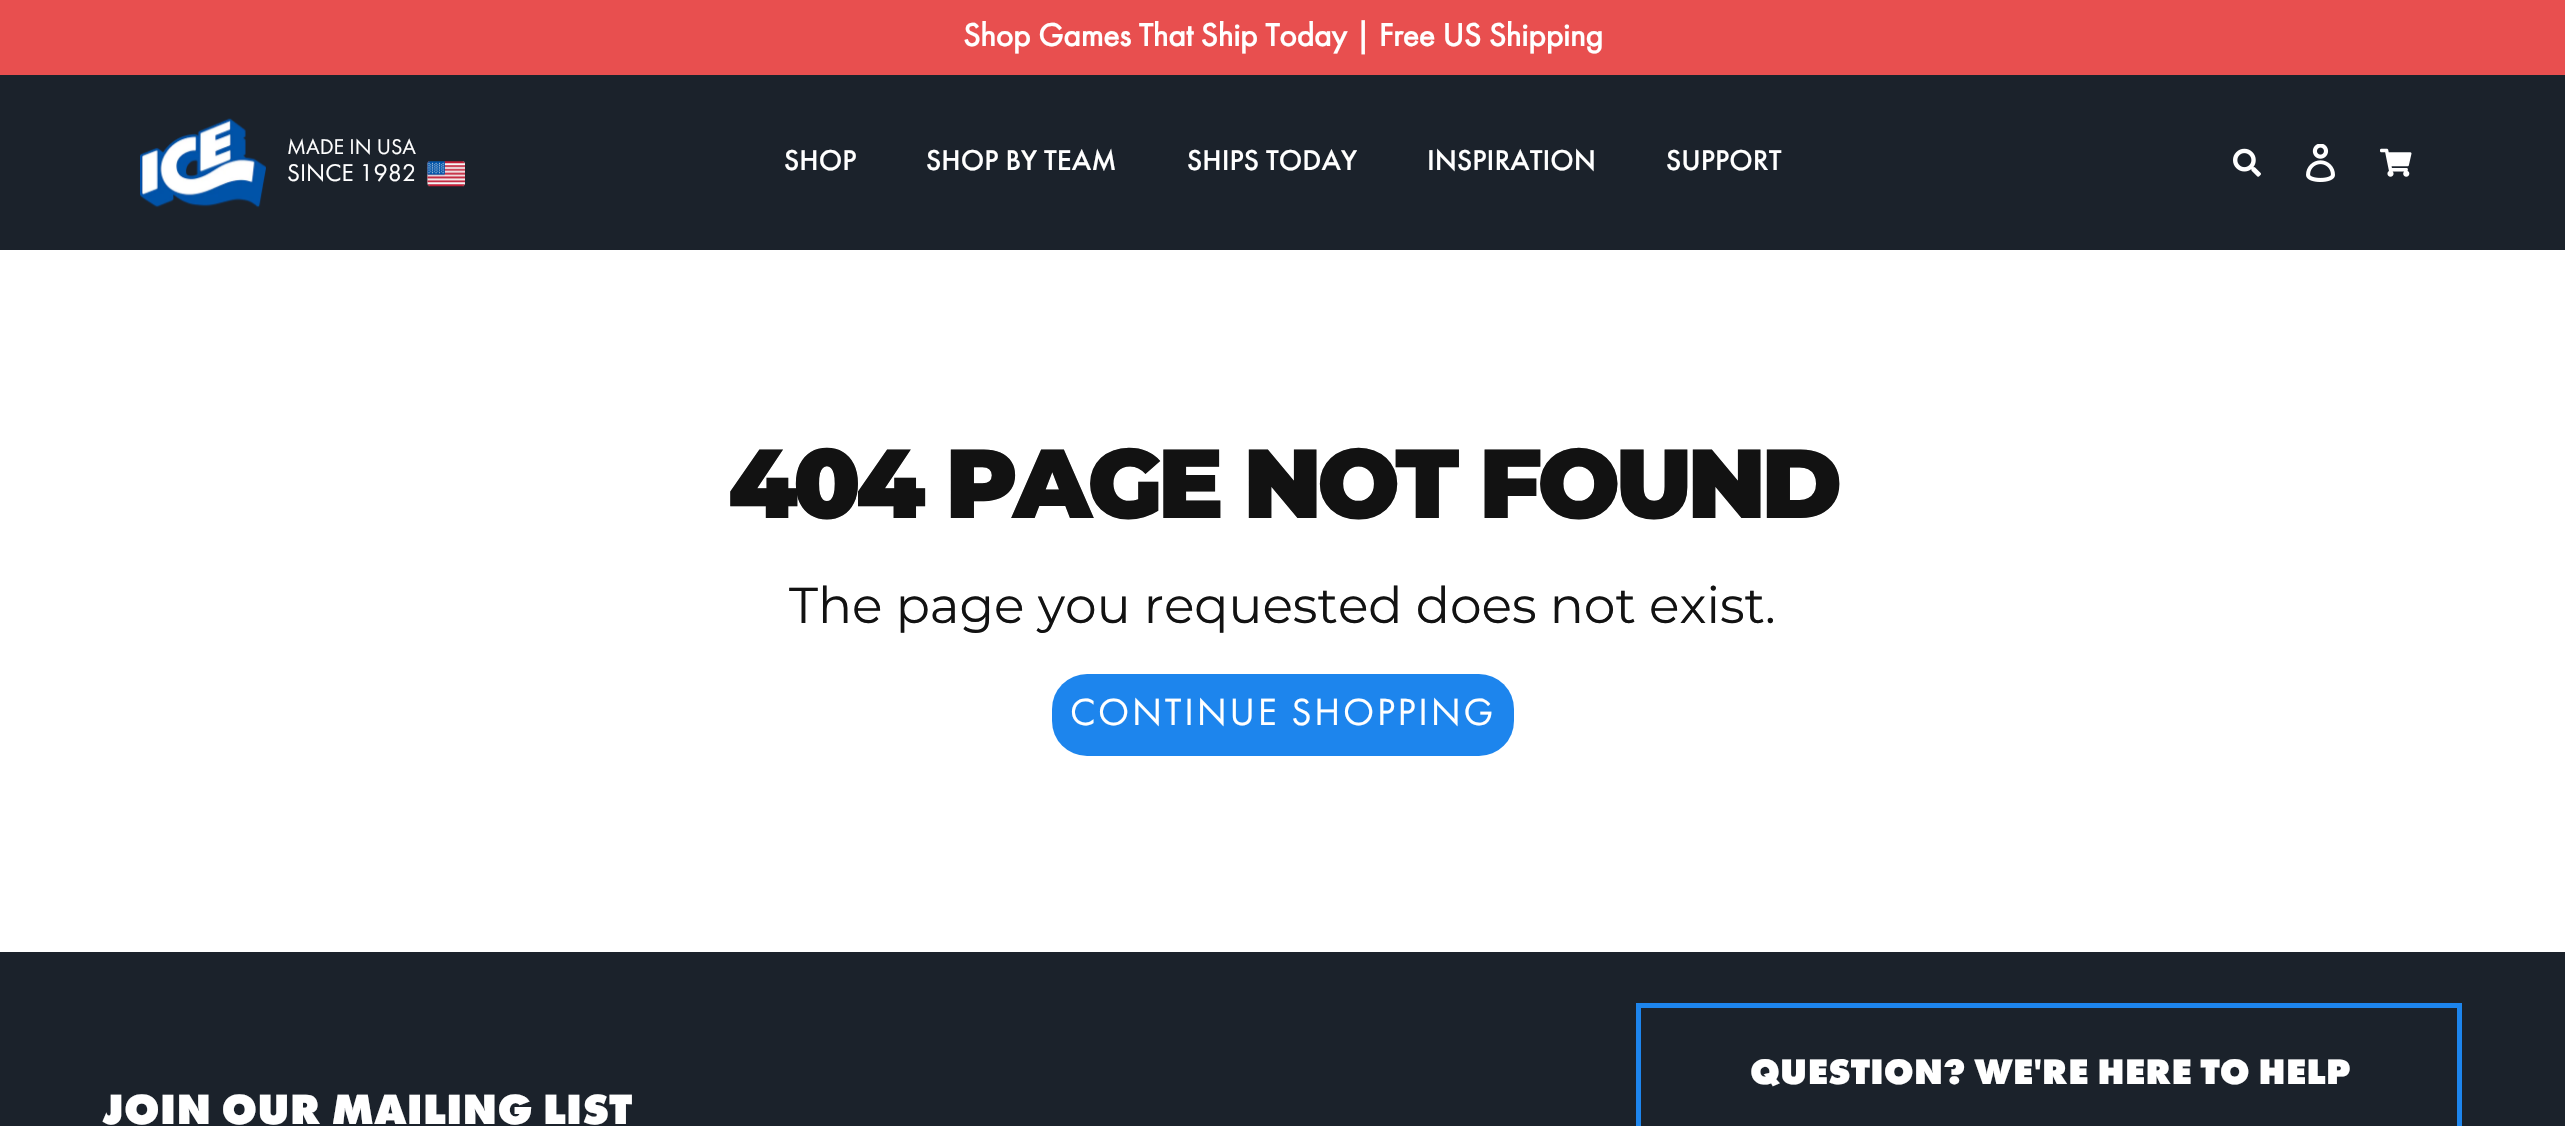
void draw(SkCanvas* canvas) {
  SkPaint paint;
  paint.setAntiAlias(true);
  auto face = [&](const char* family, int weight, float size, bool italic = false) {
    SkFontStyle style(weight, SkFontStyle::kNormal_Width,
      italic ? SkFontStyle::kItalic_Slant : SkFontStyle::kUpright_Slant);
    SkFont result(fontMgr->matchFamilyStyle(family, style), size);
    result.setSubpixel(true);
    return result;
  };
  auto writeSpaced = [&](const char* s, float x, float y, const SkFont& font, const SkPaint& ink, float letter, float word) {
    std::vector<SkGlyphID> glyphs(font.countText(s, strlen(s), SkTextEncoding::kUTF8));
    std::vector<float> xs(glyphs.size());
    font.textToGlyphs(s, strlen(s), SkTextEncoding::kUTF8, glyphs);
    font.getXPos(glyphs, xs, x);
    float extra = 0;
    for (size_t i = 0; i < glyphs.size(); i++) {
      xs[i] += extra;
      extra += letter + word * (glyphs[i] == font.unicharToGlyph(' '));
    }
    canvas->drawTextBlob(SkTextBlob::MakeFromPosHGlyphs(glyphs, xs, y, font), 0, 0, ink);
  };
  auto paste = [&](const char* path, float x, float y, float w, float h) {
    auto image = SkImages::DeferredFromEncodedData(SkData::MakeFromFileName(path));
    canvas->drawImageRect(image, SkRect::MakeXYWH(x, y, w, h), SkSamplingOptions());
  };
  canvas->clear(0xffffffff);
  paint.setColor(0xffe84f4f);
  canvas->drawRect(SkRect::MakeXYWH(0, 0, 2565, 75), paint);
  paint.setColor(0xff1b222b);
  canvas->drawRect(SkRect::MakeXYWH(0, 75, 2565, 175), paint);
  paste("img/1.png", 140, 118, 126, 90);
  paste("img/2.png", 427, 161, 38, 26);
  paste("img/3.png", 2233, 148, 28, 29);
  paste("img/4.png", 2306, 144, 29, 38);
  paste("img/5.png", 2380, 148, 32, 29);
  paint.setColor(0xff1d85ed);
  canvas->drawRoundRect(SkRect::MakeXYWH(1052, 674, 462, 82), 35, 35, paint);
  paint.setColor(0xff1b222b);
  canvas->drawRect(SkRect::MakeXYWH(0, 952, 2565, 174), paint);
  paint.setStroke(true);
  paint.setStrokeWidth(5);
  paint.setColor(0xff1d85ed);
  canvas->drawRect(SkRect::MakeXYWH(1638.5f, 1005.5f, 821, 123), paint);
  auto f0 = face("Futura PT", 700, 33.1f);
  paint.setStroke(false);
  paint.setColor(0xffffffff);
  canvas->drawString("Shop Games That Ship Today | Free US Shipping", 963, 46, f0, paint);
  auto f1 = face("Futura PT", 400, 22);
  canvas->drawString("MADE IN USA", 287, 154, f1, paint);
  auto f2 = face("Futura PT", 400, 25);
  canvas->drawString("SINCE 1982", 287, 181, f2, paint);
  auto f3 = face("Futura PT", 500, 29.75f);
  {
    const struct { const char* s; float x, y; } items[] = {
      {"SHOP", 784, 170},
      {"SHOP BY TEAM", 926, 170},
      {"SHIPS TODAY", 1187, 170},
      {"INSPIRATION", 1427, 170},
      {"SUPPORT", 1666, 170},
    };
    for (auto [s, x, y] : items) {
      canvas->drawString(s, x, y, f3, paint);
    }
  }
  auto f4 = face("Montserrat", 900, 98);
  paint.setColor(0xff121212);
  writeSpaced("404 PAGE NOT FOUND", 728, 518, f4, paint, -4.9f, 0);
  auto f5 = face("Montserrat", 400, 50.4f);
  canvas->drawString("The page you requested does not exist.", 789, 623, f5, paint);
  auto f6 = face("Futura PT", 400, 39.25f);
  paint.setColor(0xffffffff);
  writeSpaced("CONTINUE SHOPPING", 1070, 725, f6, paint, 2.75f, 0);
  auto f7 = face("Futura PT", 800, 36.75f);
  canvas->drawString("QUESTION? WE'RE HERE TO HELP", 1750, 1084, f7, paint);
  auto f8 = face("Futura PT", 800, 43.75f);
  canvas->drawString("JOIN OUR MAILING LIST", 103, 1124, f8, paint);
}
